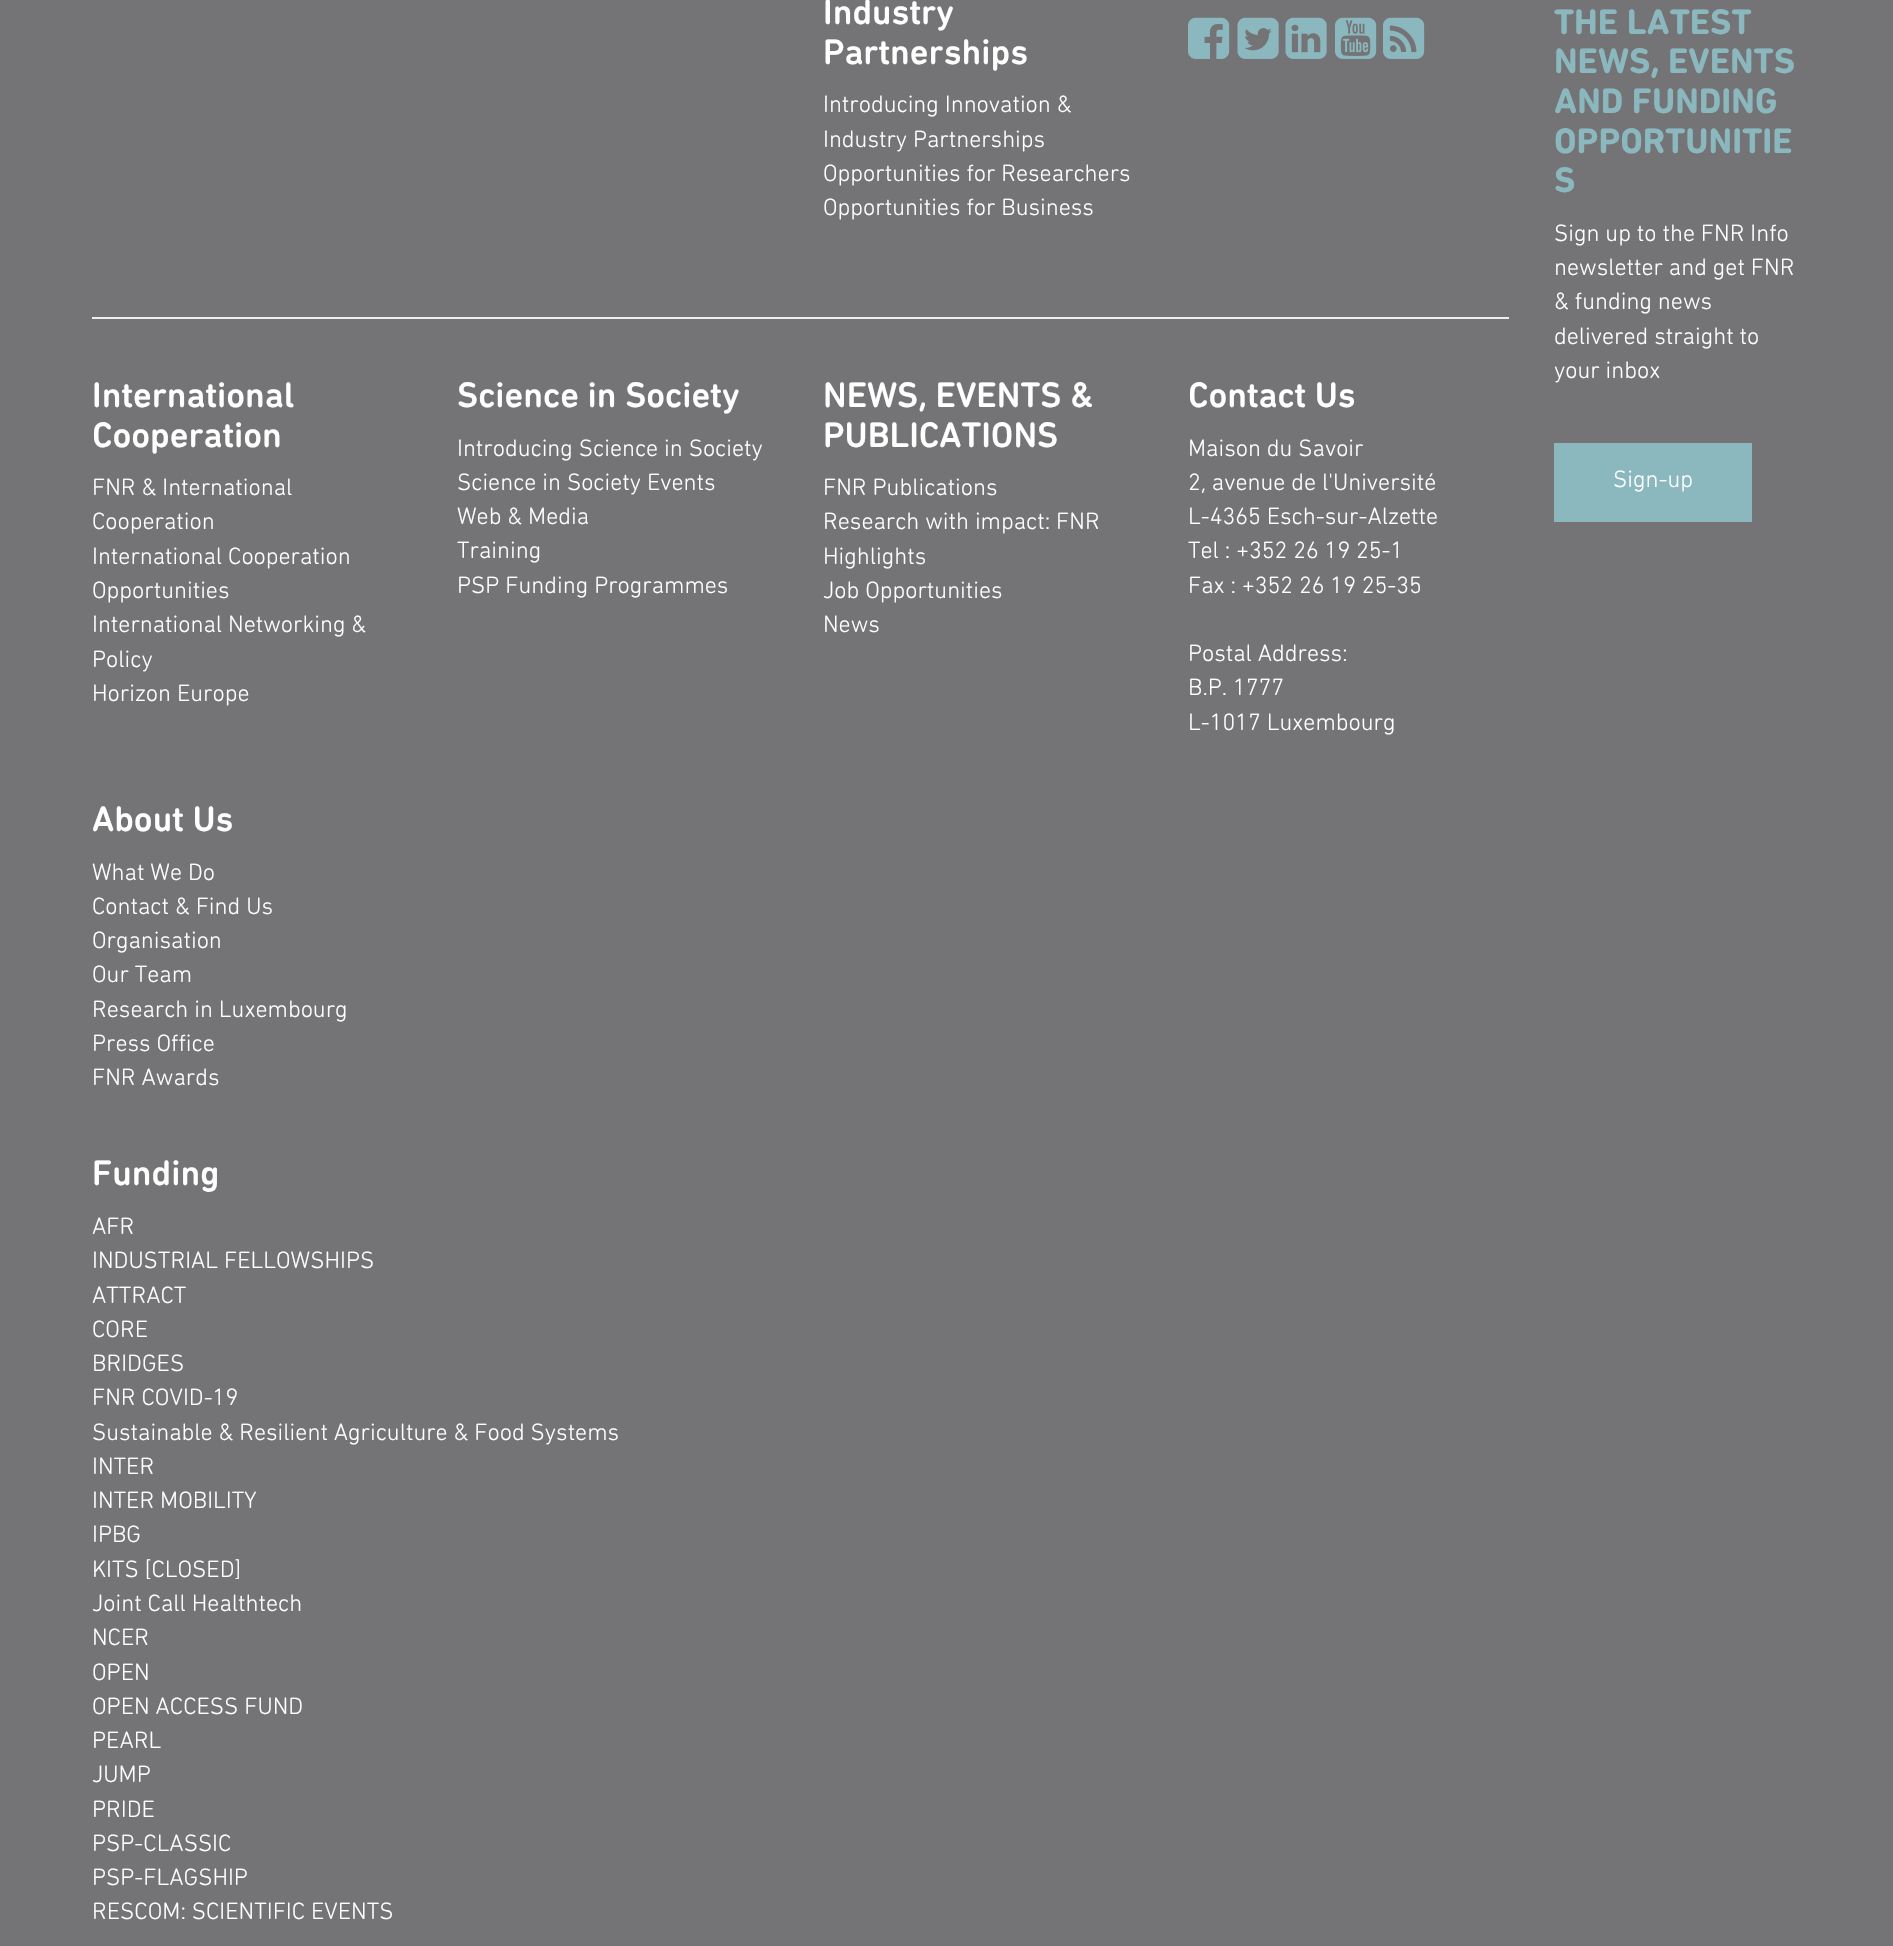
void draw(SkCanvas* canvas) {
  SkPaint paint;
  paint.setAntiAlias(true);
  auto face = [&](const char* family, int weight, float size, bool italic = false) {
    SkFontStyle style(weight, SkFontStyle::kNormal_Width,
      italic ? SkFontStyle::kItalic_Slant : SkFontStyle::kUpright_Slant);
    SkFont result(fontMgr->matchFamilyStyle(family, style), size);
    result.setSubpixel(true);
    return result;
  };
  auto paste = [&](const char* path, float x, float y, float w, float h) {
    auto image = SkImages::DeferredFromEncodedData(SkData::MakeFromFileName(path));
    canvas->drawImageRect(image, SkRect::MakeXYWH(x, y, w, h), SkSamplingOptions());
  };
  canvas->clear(0xff747476);
  paste("img/1.png", 1188, 17, 42, 42);
  paste("img/2.png", 1237, 17, 42, 42);
  paste("img/3.png", 1285, 17, 42, 42);
  paste("img/4.png", 1335, 17, 42, 42);
  paste("img/5.png", 1383, 17, 42, 42);
  paint.setColor(0xffeeeeee);
  canvas->drawRect(SkRect::MakeXYWH(92, 317, 1417, 2), paint);
  paint.setColor(0xff8bb8be);
  canvas->drawRect(SkRect::MakeXYWH(1554, 443, 198, 79), paint);
  auto f0 = face("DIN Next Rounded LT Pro", 500, 36);
  paint.setColor(0xffffffff);
  canvas->drawString("Industry", 823, 24, f0, paint);
  canvas->drawString("Partnerships", 823, 64, f0, paint);
  auto f1 = face("DIN Next Rounded LT Pro", 300, 24);
  {
    const struct { const char* s; float x, y; } items[] = {
      {"Introducing Innovation &", 823, 112},
      {"Industry Partnerships", 823, 147},
      {"Opportunities for Researchers", 823, 181},
      {"Opportunities for Business", 823, 215},
    };
    for (auto [s, x, y] : items) {
      canvas->drawString(s, x, y, f1, paint);
    }
  }
  canvas->drawString("International", 92, 407, f0, paint);
  canvas->drawString("Cooperation", 92, 447, f0, paint);
  {
    const struct { const char* s; float x, y; } items[] = {
      {"FNR & International", 92, 495},
      {"Cooperation", 92, 529},
      {"International Cooperation", 92, 564},
      {"Opportunities", 92, 598},
      {"International Networking &", 92, 632},
      {"Policy", 92, 667},
      {"Horizon Europe", 92, 701},
    };
    for (auto [s, x, y] : items) {
      canvas->drawString(s, x, y, f1, paint);
    }
  }
  canvas->drawString("Science in Society", 457, 407, f0, paint);
  {
    const struct { const char* s; float x, y; } items[] = {
      {"Introducing Science in Society", 457, 456},
      {"Science in Society Events", 457, 490},
      {"Web & Media", 457, 524},
      {"Training", 457, 558},
      {"PSP Funding Programmes", 457, 593},
    };
    for (auto [s, x, y] : items) {
      canvas->drawString(s, x, y, f1, paint);
    }
  }
  canvas->drawString("NEWS, EVENTS &", 823, 407, f0, paint);
  canvas->drawString("PUBLICATIONS", 823, 447, f0, paint);
  {
    const struct { const char* s; float x, y; } items[] = {
      {"FNR Publications", 823, 495},
      {"Research with impact: FNR", 823, 529},
      {"Highlights", 823, 564},
      {"Job Opportunities", 823, 598},
      {"News", 823, 632},
    };
    for (auto [s, x, y] : items) {
      canvas->drawString(s, x, y, f1, paint);
    }
  }
  canvas->drawString("Contact Us", 1188, 407, f0, paint);
  {
    const struct { const char* s; float x, y; } items[] = {
      {"Maison du Savoir", 1188, 456},
      {"2, avenue de l'Université", 1188, 490},
      {"L-4365 Esch-sur-Alzette", 1188, 524},
      {"Tel : +352 26 19 25-1", 1188, 558},
      {"Fax : +352 26 19 25-35", 1188, 593},
      {"Postal Address:", 1188, 661},
      {"B.P. 1777", 1188, 695},
      {"L-1017 Luxembourg", 1188, 730},
    };
    for (auto [s, x, y] : items) {
      canvas->drawString(s, x, y, f1, paint);
    }
  }
  auto f2 = face("DIN Next Rounded LT Pro", 700, 36);
  paint.setColor(0xff8bb8be);
  {
    const struct { const char* s; float x, y; } items[] = {
      {"THE LATEST", 1554, 34},
      {"NEWS, EVENTS", 1554, 73},
      {"AND FUNDING", 1554, 113},
      {"OPPORTUNITIE", 1554, 153},
      {"S", 1554, 192},
    };
    for (auto [s, x, y] : items) {
      canvas->drawString(s, x, y, f2, paint);
    }
  }
  paint.setColor(0xffffffff);
  {
    const struct { const char* s; float x, y; } items[] = {
      {"Sign up to the FNR Info", 1554, 241},
      {"newsletter and get FNR", 1554, 275},
      {"& funding news", 1554, 309},
      {"delivered straight to", 1554, 344},
      {"your inbox", 1554, 378},
      {"Sign-up", 1613, 487},
    };
    for (auto [s, x, y] : items) {
      canvas->drawString(s, x, y, f1, paint);
    }
  }
  canvas->drawString("About Us", 92, 831, f0, paint);
  {
    const struct { const char* s; float x, y; } items[] = {
      {"What We Do", 92, 880},
      {"Contact & Find Us", 92, 914},
      {"Organisation", 92, 948},
      {"Our Team", 92, 982},
      {"Research in Luxembourg", 92, 1017},
      {"Press Office", 92, 1051},
      {"FNR Awards", 92, 1085},
    };
    for (auto [s, x, y] : items) {
      canvas->drawString(s, x, y, f1, paint);
    }
  }
  canvas->drawString("Funding", 92, 1185, f0, paint);
  {
    const struct { const char* s; float x, y; } items[] = {
      {"AFR", 92, 1234},
      {"INDUSTRIAL FELLOWSHIPS", 92, 1268},
      {"ATTRACT", 92, 1303},
      {"CORE", 92, 1337},
      {"BRIDGES", 92, 1371},
      {"FNR COVID-19", 92, 1405},
      {"Sustainable & Resilient Agriculture & Food Systems", 92, 1440},
      {"INTER", 92, 1474},
      {"INTER MOBILITY", 92, 1508},
      {"IPBG", 92, 1542},
      {"KITS [CLOSED]", 92, 1577},
      {"Joint Call Healthtech", 92, 1611},
      {"NCER", 92, 1645},
      {"OPEN", 92, 1680},
      {"OPEN ACCESS FUND", 92, 1714},
      {"PEARL", 92, 1748},
      {"JUMP", 92, 1782},
      {"PRIDE", 92, 1817},
      {"PSP-CLASSIC", 92, 1851},
      {"PSP-FLAGSHIP", 92, 1885},
      {"RESCOM: SCIENTIFIC EVENTS", 92, 1919},
    };
    for (auto [s, x, y] : items) {
      canvas->drawString(s, x, y, f1, paint);
    }
  }
}
